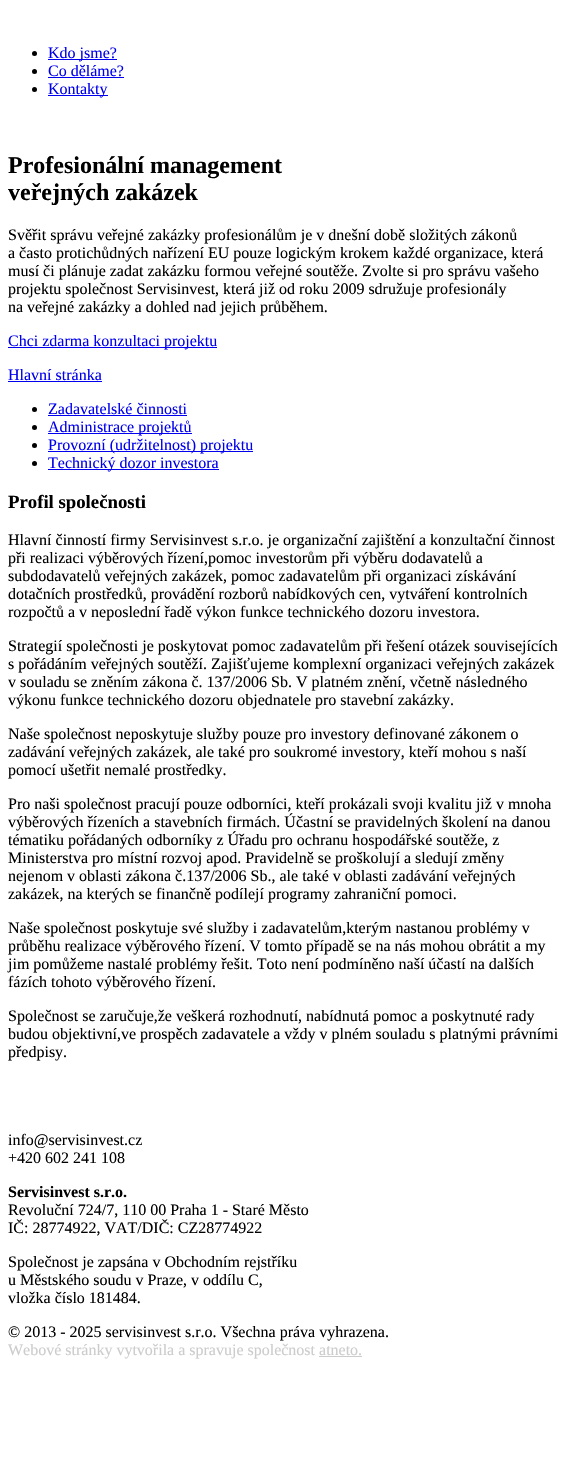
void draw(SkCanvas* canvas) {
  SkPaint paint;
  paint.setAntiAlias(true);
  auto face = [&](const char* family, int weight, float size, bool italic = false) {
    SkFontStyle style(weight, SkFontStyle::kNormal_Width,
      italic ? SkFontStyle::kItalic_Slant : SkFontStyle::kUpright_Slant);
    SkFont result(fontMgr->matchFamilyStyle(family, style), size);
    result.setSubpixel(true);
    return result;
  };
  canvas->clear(0xffffffff);
  paint.setColor(0xff000000);
  canvas->drawCircle(34.5f, 53.5f, 2.5f, paint);
  paint.setColor(0xff0000ee);
  canvas->drawRect(SkRect::MakeXYWH(48, 59, 69, 1), paint);
  paint.setColor(0xff000000);
  canvas->drawCircle(34.5f, 71.5f, 2.5f, paint);
  paint.setColor(0xff0000ee);
  canvas->drawRect(SkRect::MakeXYWH(48, 77, 76, 1), paint);
  paint.setColor(0xff000000);
  canvas->drawCircle(34.5f, 89.5f, 2.5f, paint);
  {
    const struct { float x, y, w, h; SkColor color; } items[] = {
      {48, 95, 60, 1, 0xff0000ee},
      {8, 347, 209, 1, 0xff0000ee},
      {8, 381, 94, 1, 0xff0000ee},
    };
    for (auto [x, y, w, h, color] : items) {
      paint.setColor(color);
      canvas->drawRect(SkRect::MakeXYWH(x, y, w, h), paint);
    }
  }
  paint.setColor(0xff000000);
  canvas->drawCircle(34.5f, 409.5f, 2.5f, paint);
  paint.setColor(0xff0000ee);
  canvas->drawRect(SkRect::MakeXYWH(48, 415, 139, 1), paint);
  paint.setColor(0xff000000);
  canvas->drawCircle(34.5f, 427.5f, 2.5f, paint);
  paint.setColor(0xff0000ee);
  canvas->drawRect(SkRect::MakeXYWH(48, 433, 144, 1), paint);
  paint.setColor(0xff000000);
  canvas->drawCircle(34.5f, 445.5f, 2.5f, paint);
  paint.setColor(0xff0000ee);
  canvas->drawRect(SkRect::MakeXYWH(48, 451, 205, 1), paint);
  paint.setColor(0xff000000);
  canvas->drawCircle(34.5f, 463.5f, 2.5f, paint);
  paint.setColor(0xff0000ee);
  canvas->drawRect(SkRect::MakeXYWH(48, 469, 171, 1), paint);
  paint.setColor(0xffcccccc);
  canvas->drawRect(SkRect::MakeXYWH(319, 1356, 43, 1), paint);
  auto f0 = face("Liberation Serif", 400, 16);
  paint.setColor(0xff0000ee);
  {
    const struct { const char* s; float x, y; } items[] = {
      {"Kdo jsme?", 48, 58},
      {"Co děláme?", 48, 76},
      {"Kontakty", 48, 94},
    };
    for (auto [s, x, y] : items) {
      canvas->drawString(s, x, y, f0, paint);
    }
  }
  auto f1 = face("Liberation Serif", 700, 24);
  paint.setColor(0xff000000);
  canvas->drawString("Profesionální management", 8, 173, f1, paint);
  canvas->drawString("veřejných zakázek", 8, 200, f1, paint);
  {
    const struct { const char* s; float x, y; } items[] = {
      {"Svěřit správu veřejné zakázky profesionálům je v dnešní době složitých zákonů", 8, 240},
      {"a často protichůdných nařízení EU pouze logickým krokem každé organizace, která", 8, 258},
      {"musí či plánuje zadat zakázku formou veřejné soutěže. Zvolte si pro správu vašeho", 8, 276},
      {"projektu společnost Servisinvest, která již od roku 2009 sdružuje profesionály", 8, 294},
      {"na veřejné zakázky a dohled nad jejich průběhem.", 8, 312},
    };
    for (auto [s, x, y] : items) {
      canvas->drawString(s, x, y, f0, paint);
    }
  }
  paint.setColor(0xff0000ee);
  {
    const struct { const char* s; float x, y; } items[] = {
      {"Chci zdarma konzultaci projektu", 8, 346},
      {"Hlavní stránka", 8, 380},
      {"Zadavatelské činnosti", 48, 414},
      {"Administrace projektů", 48, 432},
      {"Provozní (udržitelnost) projektu", 48, 450},
      {"Technický dozor investora", 48, 468},
    };
    for (auto [s, x, y] : items) {
      canvas->drawString(s, x, y, f0, paint);
    }
  }
  auto f2 = face("Liberation Serif", 700, 18.75f);
  paint.setColor(0xff000000);
  canvas->drawString("Profil společnosti", 8, 508, f2, paint);
  {
    const struct { const char* s; float x, y; } items[] = {
      {"Hlavní činností firmy Servisinvest s.r.o. je organizační zajištění a konzultační činnost", 8, 545},
      {"při realizaci výběrových řízení,pomoc investorům při výběru dodavatelů a", 8, 563},
      {"subdodavatelů veřejných zakázek, pomoc zadavatelům při organizaci získávání", 8, 581},
      {"dotačních prostředků, provádění rozborů nabídkových cen, vytváření kontrolních", 8, 599},
      {"rozpočtů a v neposlední řadě výkon funkce technického dozoru investora.", 8, 617},
      {"Strategií společnosti je poskytovat pomoc zadavatelům při řešení otázek souvisejících", 8, 651},
      {"s pořádáním veřejných soutěží. Zajišťujeme komplexní organizaci veřejných zakázek", 8, 669},
      {"v souladu se zněním zákona č. 137/2006 Sb. V platném znění, včetně následného", 8, 687},
      {"výkonu funkce technického dozoru objednatele pro stavební zakázky.", 8, 705},
      {"Naše společnost neposkytuje služby pouze pro investory definované zákonem o", 8, 739},
      {"zadávání veřejných zakázek, ale také pro soukromé investory, kteří mohou s naší", 8, 757},
      {"pomocí ušetřit nemalé prostředky.", 8, 775},
      {"Pro naši společnost pracují pouze odborníci, kteří prokázali svoji kvalitu již v mnoha", 8, 809},
      {"výběrových řízeních a stavebních firmách. Účastní se pravidelných školení na danou", 8, 827},
      {"tématiku pořádaných odborníky z Úřadu pro ochranu hospodářské soutěže, z", 8, 845},
      {"Ministerstva pro místní rozvoj apod. Pravidelně se proškolují a sledují změny", 8, 863},
      {"nejenom v oblasti zákona č.137/2006 Sb., ale také v oblasti zadávání veřejných", 8, 881},
      {"zakázek, na kterých se finančně podílejí programy zahraniční pomoci.", 8, 899},
      {"Naše společnost poskytuje své služby i zadavatelům,kterým nastanou problémy v", 8, 933},
      {"průběhu realizace výběrového řízení. V tomto případě se na nás mohou obrátit a my", 8, 951},
      {"jim pomůžeme nastalé problémy řešit. Toto není podmíněno naší účastí na dalších", 8, 969},
      {"fázích tohoto výběrového řízení.", 8, 987},
      {"Společnost se zaručuje,že veškerá rozhodnutí, nabídnutá pomoc a poskytnuté rady", 8, 1021},
      {"budou objektivní,ve prospěch zadavatele a vždy v plném souladu s platnými právními", 8, 1039},
      {"předpisy.", 8, 1057},
      {"info@servisinvest.cz", 8, 1145},
      {"+420 602 241 108", 8, 1163},
    };
    for (auto [s, x, y] : items) {
      canvas->drawString(s, x, y, f0, paint);
    }
  }
  auto f3 = face("Liberation Serif", 700, 16);
  canvas->drawString("Servisinvest s.r.o.", 8, 1197, f3, paint);
  {
    const struct { const char* s; float x, y; } items[] = {
      {"Revoluční 724/7, 110 00 Praha 1 - Staré Město", 8, 1215},
      {"IČ: 28774922, VAT/DIČ: CZ28774922", 8, 1233},
      {"Společnost je zapsána v Obchodním rejstříku", 8, 1267},
      {"u Městského soudu v Praze, v oddílu C,", 8, 1285},
      {"vložka číslo 181484.", 8, 1303},
      {"© 2013 - 2025 servisinvest s.r.o. Všechna práva vyhrazena.", 8, 1337},
    };
    for (auto [s, x, y] : items) {
      canvas->drawString(s, x, y, f0, paint);
    }
  }
  paint.setColor(0xffcccccc);
  canvas->drawString("Webové stránky vytvořila a spravuje společnost atneto.", 8, 1355, f0, paint);
}
